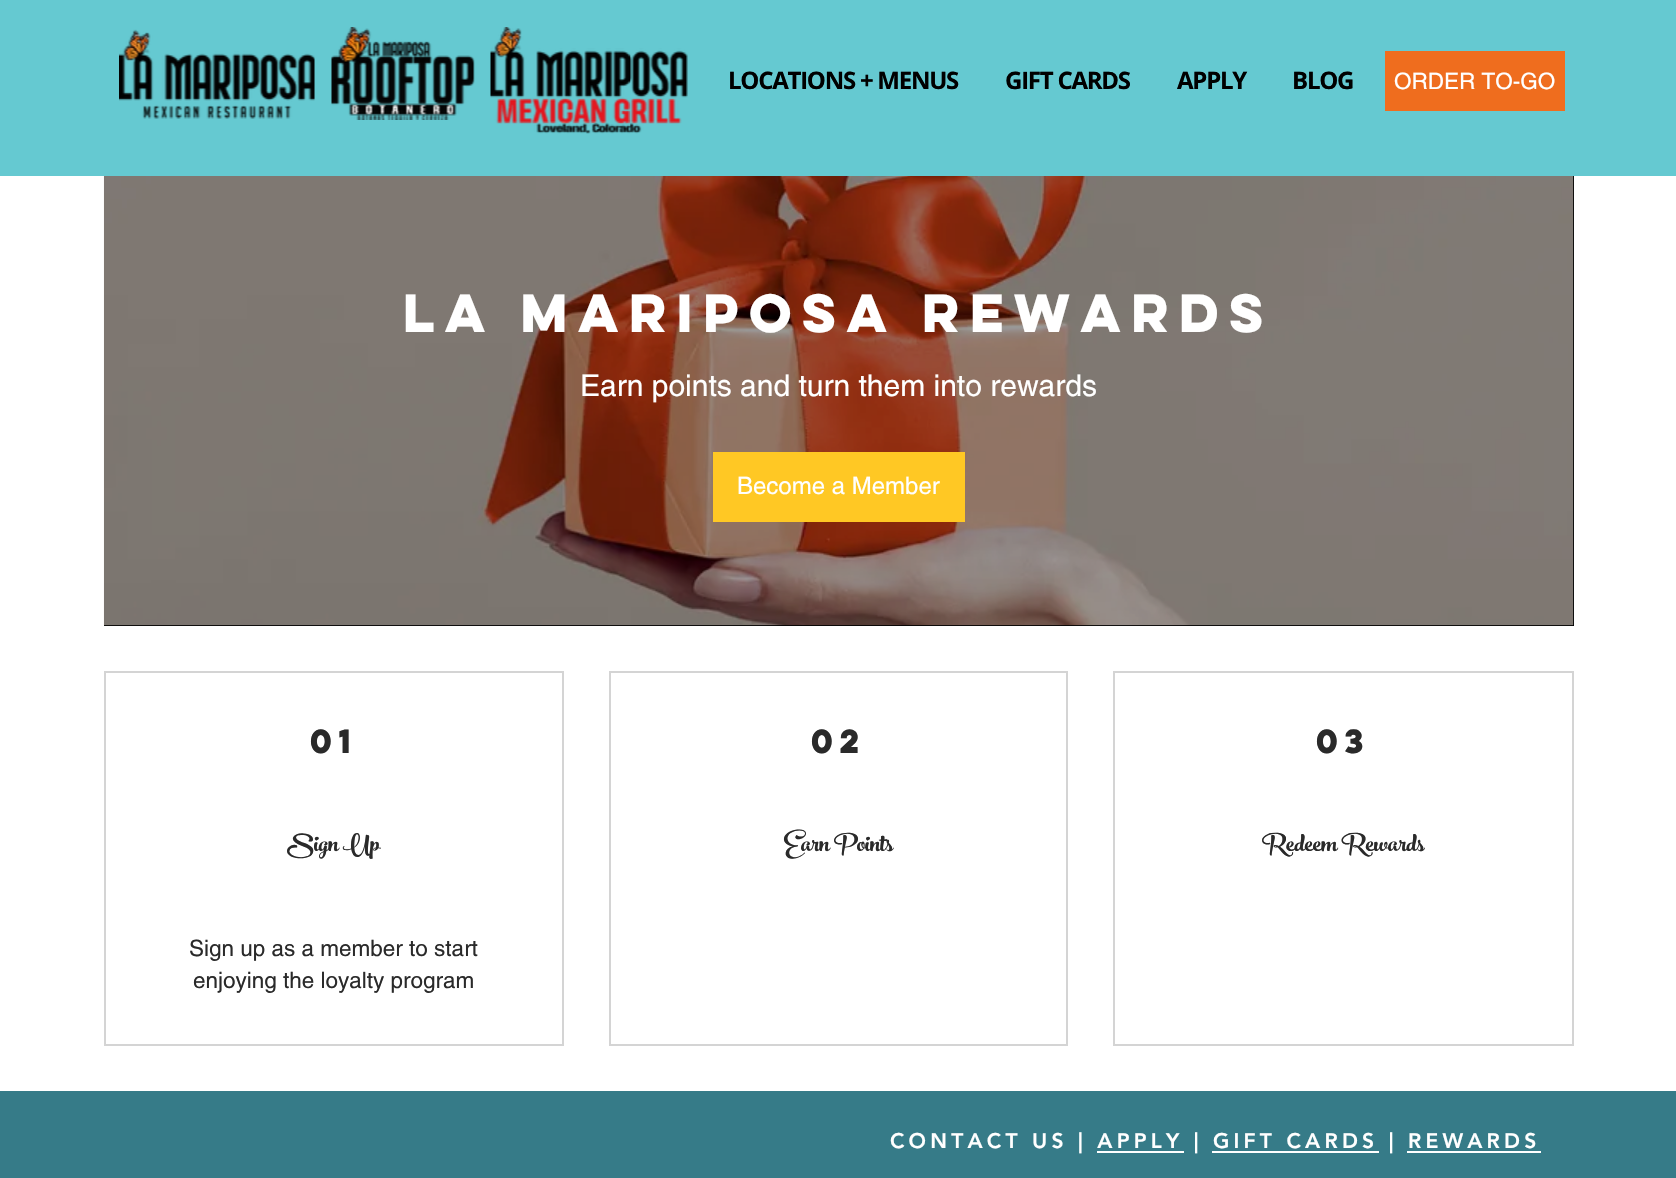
void draw(SkCanvas* canvas) {
  SkPaint paint;
  paint.setAntiAlias(true);
  auto face = [&](const char* family, int weight, float size, bool italic = false) {
    SkFontStyle style(weight, SkFontStyle::kNormal_Width,
      italic ? SkFontStyle::kItalic_Slant : SkFontStyle::kUpright_Slant);
    SkFont result(fontMgr->matchFamilyStyle(family, style), size);
    result.setSubpixel(true);
    return result;
  };
  auto writeSpaced = [&](const char* s, float x, float y, const SkFont& font, const SkPaint& ink, float letter, float word) {
    std::vector<SkGlyphID> glyphs(font.countText(s, strlen(s), SkTextEncoding::kUTF8));
    std::vector<float> xs(glyphs.size());
    font.textToGlyphs(s, strlen(s), SkTextEncoding::kUTF8, glyphs);
    font.getXPos(glyphs, xs, x);
    float extra = 0;
    for (size_t i = 0; i < glyphs.size(); i++) {
      xs[i] += extra;
      extra += letter + word * (glyphs[i] == font.unicharToGlyph(' '));
    }
    canvas->drawTextBlob(SkTextBlob::MakeFromPosHGlyphs(glyphs, xs, y, font), 0, 0, ink);
  };
  auto paste = [&](const char* path, float x, float y, float w, float h) {
    auto image = SkImages::DeferredFromEncodedData(SkData::MakeFromFileName(path));
    canvas->drawImageRect(image, SkRect::MakeXYWH(x, y, w, h), SkSamplingOptions());
  };
  canvas->clear(0xffffffff);
  paint.setColor(0xff65c9d1);
  canvas->drawRect(SkRect::MakeXYWH(0, 0, 1676, 176), paint);
  paste("img/1.png", 119, 29, 196, 90);
  paste("img/2.png", 331, 27, 144, 93);
  paste("img/3.png", 490, 27, 198, 107);
  paint.setColor(0xffef6d1e);
  canvas->drawRect(SkRect::MakeXYWH(1385, 51, 180, 60), paint);
  paint.setColor(0xff000000);
  canvas->drawRect(SkRect::MakeXYWH(104, 176, 1470, 450), paint);
  paste("img/4.png", 103, 176, 1471, 450);
  paint.setColor(0xffffc824);
  canvas->drawRect(SkRect::MakeXYWH(713, 452, 252, 70), paint);
  paint.setStroke(true);
  paint.setStrokeWidth(2);
  paint.setColor(0xffd4d4d4);
  canvas->drawRect(SkRect::MakeXYWH(105, 672, 458, 373), paint);
  canvas->drawRect(SkRect::MakeXYWH(610, 672, 457, 373), paint);
  canvas->drawRect(SkRect::MakeXYWH(1114, 672, 459, 373), paint);
  paint.setStroke(false);
  {
    const struct { float x, y, w, h; SkColor color; } items[] = {
      {0, 1091, 1676, 87, 0xff367b88},
      {1097, 1151, 87, 2, 0xffffffff},
      {1212, 1151, 167, 2, 0xffffffff},
      {1407, 1151, 134, 2, 0xffffffff},
    };
    for (auto [x, y, w, h, color] : items) {
      paint.setColor(color);
      canvas->drawRect(SkRect::MakeXYWH(x, y, w, h), paint);
    }
  }
  auto f0 = face("Open Sans", 700, 24);
  paint.setColor(0xff000000);
  {
    const struct { const char* s; float x, y; } items[] = {
      {"LOCATIONS + MENUS", 728, 89},
      {"GIFT CARDS", 1005, 89},
      {"APPLY", 1177, 89},
      {"BLOG", 1292, 89},
    };
    for (auto [s, x, y] : items) {
      writeSpaced(s, x, y, f0, paint, -1.25f, 0);
    }
  }
  auto f1 = face("helvetica", 400, 22.5f);
  paint.setColor(0xffffffff);
  canvas->drawString("ORDER TO-GO", 1394, 89, f1, paint);
  auto f2 = face("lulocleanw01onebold", 700, 48);
  canvas->drawString("La Mariposa Rewards", 403, 332, f2, paint);
  auto f3 = face("helvetica", 400, 30);
  canvas->drawString("Earn points and turn them into rewards", 580, 396, f3, paint);
  auto f4 = face("helvetica", 400, 24);
  canvas->drawString("Become a Member", 737, 494, f4, paint);
  auto f5 = face("lulocleanw01onebold", 700, 30);
  paint.setColor(0xff2a2a2a);
  canvas->drawString("01", 310, 753, f5, paint);
  auto f6 = face("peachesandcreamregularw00", 400, 36);
  canvas->drawString("Sign Up", 287, 851, f6, paint);
  canvas->drawString("Sign up as a member to start", 189, 956, f1, paint);
  canvas->drawString("enjoying the loyalty program", 193, 988, f1, paint);
  canvas->drawString("02", 811, 753, f5, paint);
  canvas->drawString("Earn Points", 784, 851, f6, paint);
  canvas->drawString("03", 1316, 753, f5, paint);
  canvas->drawString("Redeem Rewards", 1262, 851, f6, paint);
  auto f7 = face("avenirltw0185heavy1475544", 900, 21);
  paint.setColor(0xffffffff);
  writeSpaced("CONTACT US | APPLY | GIFT CARDS | REWARDS", 890, 1148, f7, paint, 4.2f, 0);
}
